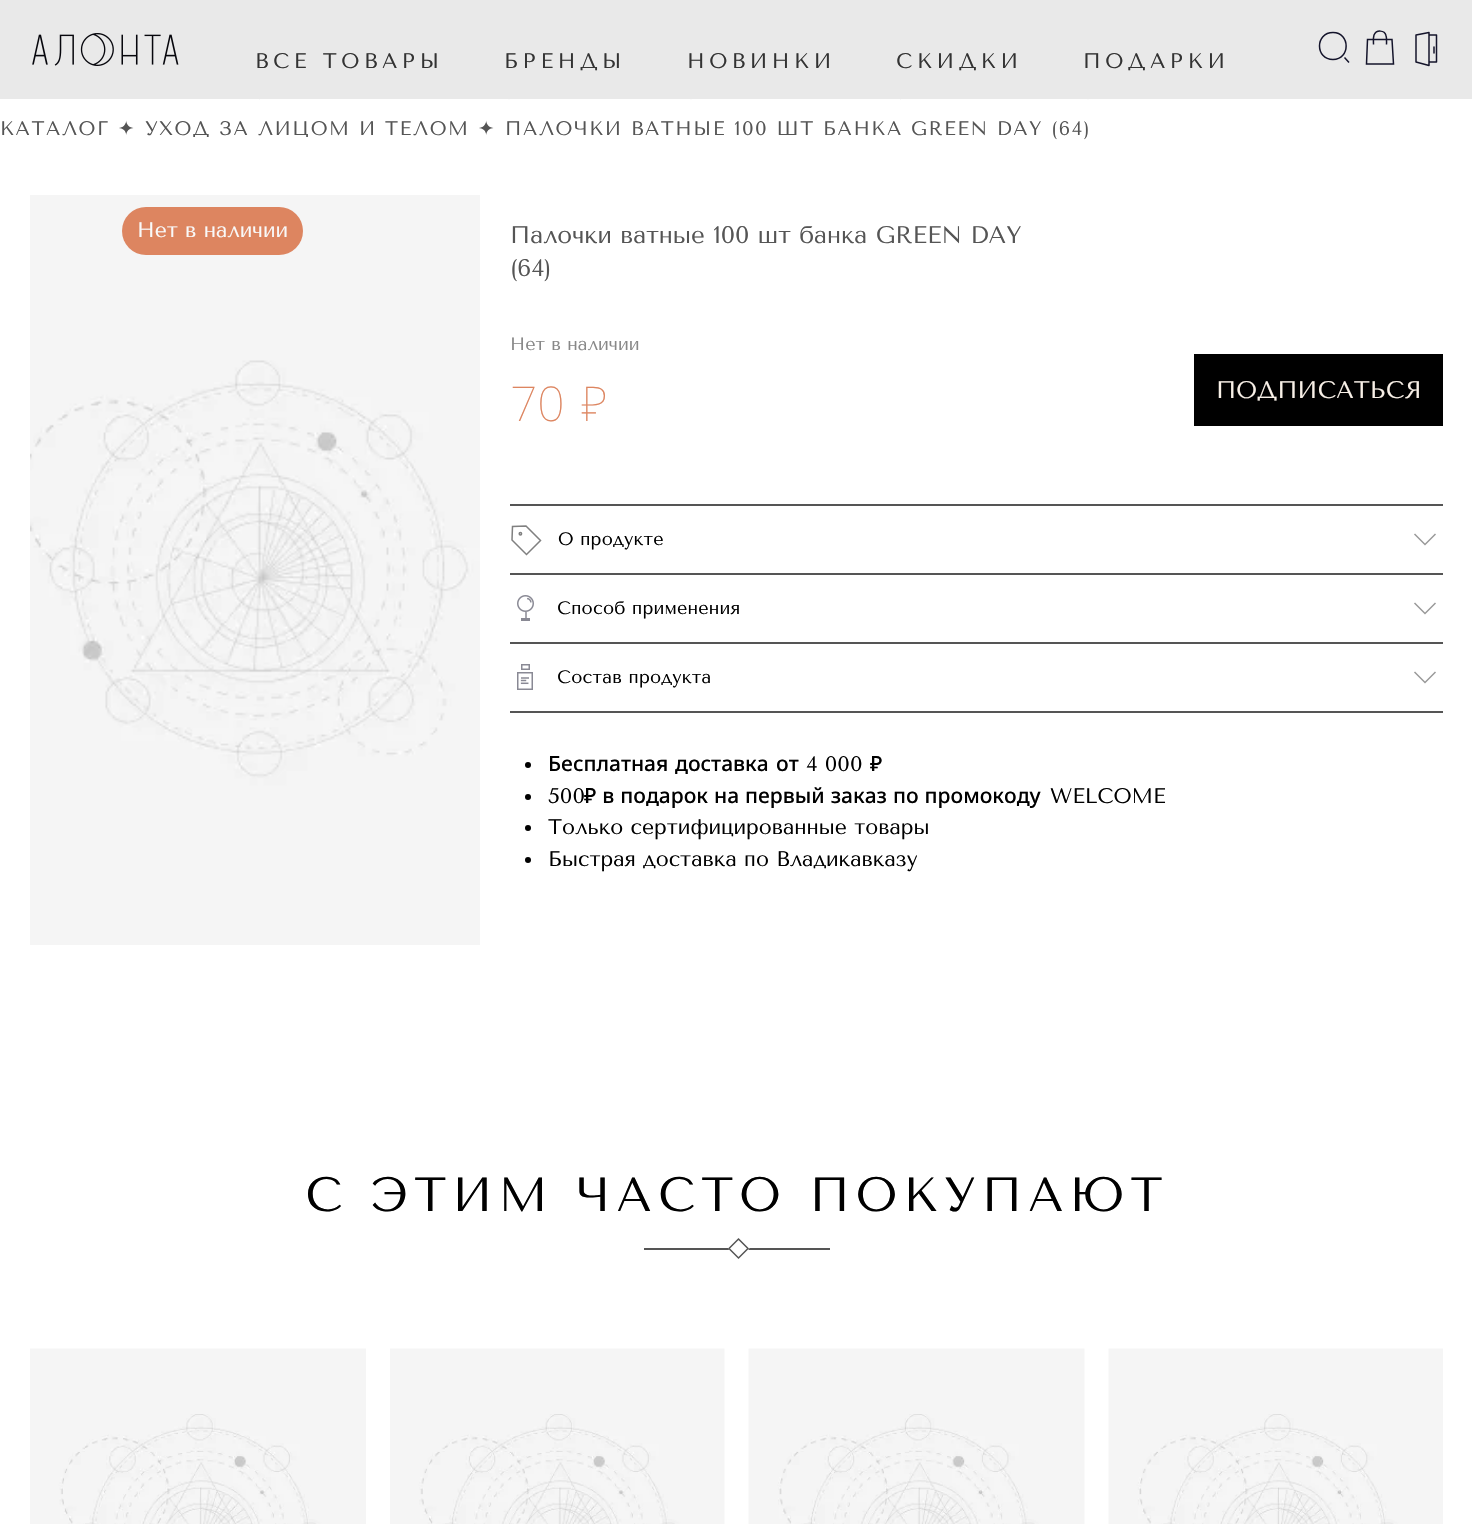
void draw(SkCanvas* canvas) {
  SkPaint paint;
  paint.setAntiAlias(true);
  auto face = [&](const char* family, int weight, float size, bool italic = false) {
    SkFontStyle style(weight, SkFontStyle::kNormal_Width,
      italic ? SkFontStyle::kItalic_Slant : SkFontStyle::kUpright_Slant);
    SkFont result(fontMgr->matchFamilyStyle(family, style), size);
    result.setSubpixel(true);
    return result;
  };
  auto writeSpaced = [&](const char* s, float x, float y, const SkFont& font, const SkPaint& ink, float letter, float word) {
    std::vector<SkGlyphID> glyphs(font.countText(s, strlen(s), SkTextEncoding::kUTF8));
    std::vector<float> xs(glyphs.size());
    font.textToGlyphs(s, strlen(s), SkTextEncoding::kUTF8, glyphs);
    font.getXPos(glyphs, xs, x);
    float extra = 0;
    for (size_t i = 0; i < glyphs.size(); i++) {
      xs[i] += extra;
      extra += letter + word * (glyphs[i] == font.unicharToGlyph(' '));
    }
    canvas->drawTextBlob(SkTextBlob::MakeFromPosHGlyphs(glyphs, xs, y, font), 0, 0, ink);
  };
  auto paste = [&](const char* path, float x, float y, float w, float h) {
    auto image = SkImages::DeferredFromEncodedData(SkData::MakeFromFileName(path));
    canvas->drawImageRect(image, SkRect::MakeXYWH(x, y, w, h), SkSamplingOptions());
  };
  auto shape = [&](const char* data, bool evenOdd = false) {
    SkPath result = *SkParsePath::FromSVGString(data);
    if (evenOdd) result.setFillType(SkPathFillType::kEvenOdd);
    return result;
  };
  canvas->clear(0xffffffff);
  paint.setColor(0xffe9e9e9);
  canvas->drawRect(SkRect::MakeXYWH(0, 0, 1472, 99), paint);
  paste("img/1.png", 32, 33, 147, 33);
  canvas->drawPath(shape("M259.5 86.5L266 93L259.5 99.5L253 93Z"), paint);
  canvas->drawPath(shape("M509 86.5L515 93L509 99.5L502.5 93Z"), paint);
  canvas->drawPath(shape("M691 86.5L697.5 93L691 99.5L685 93Z"), paint);
  canvas->drawPath(shape("M900.5 86.5L907 93L900.5 99.5L894 93Z"), paint);
  canvas->drawPath(shape("M1088 86.5L1094 93L1088 99.5L1081.5 93Z"), paint);
  paint.setStroke(true);
  paint.setStrokeWidth(1.5f);
  paint.setColor(0xff14142b);
  canvas->drawPath(shape("M1333 59.5C1350.5 59.5 1350.5 32.5 1333 32.5C1315 32.5 1315 59.5 1333 59.5ZM1349 62.5L1344.5 57.5"), paint);
  canvas->drawPath(shape("M1366.5 64L1367.5 39.5H1392L1393.5 64ZM1373.5 44.5C1373.5 41.5 1373 38 1374 35C1376.5 29.5 1384.5 30 1386 35.5C1387 38.5 1386.5 41.5 1386.5 44.5"), paint);
  paint.setStrokeCap(SkPaint::kRound_Cap);
  paint.setStrokeJoin(SkPaint::kRound_Join);
  canvas->drawPath(shape("M1429 35H1436.5V62H1429M1416 35L1429 32.5V65.5L1416 62ZM1434 47V53"), paint);
  paste("img/2.png", 30, 195, 450, 750);
  paint.setStroke(false);
  paint.setColor(0xffdd8560);
  canvas->drawRoundRect(SkRect::MakeXYWH(122, 207, 181, 48), 24, 24, paint);
  {
    const struct { float x, y, w, h; SkColor color; } items[] = {
      {1194, 354, 249, 72, 0xff000000},
      {510, 504, 933, 2, 0xff555555},
      {510, 573, 933, 2, 0xff555555},
    };
    for (auto [x, y, w, h, color] : items) {
      paint.setColor(color);
      canvas->drawRect(SkRect::MakeXYWH(x, y, w, h), paint);
    }
  }
  paint.setStroke(true);
  paint.setStrokeCap(SkPaint::kButt_Cap);
  paint.setStrokeJoin(SkPaint::kMiter_Join);
  paint.setColor(0xff808080);
  canvas->drawPath(shape("M526 526L540.5 540.5L526.5 554.5L512 540L512.5 526.5Z"), paint);
  canvas->drawCircle(520.4f, 533.7f, 1.2f, paint);
  paint.setColor(0xff999999);
  canvas->drawPath(shape("M1435.5 534L1425 544.5L1414.5 534"), paint);
  paint.setStroke(false);
  paint.setColor(0xff555555);
  canvas->drawRect(SkRect::MakeXYWH(510, 642, 933, 2), paint);
  paste("img/3.png", 517, 595, 17, 26);
  paint.setStroke(true);
  paint.setColor(0xff999999);
  canvas->drawPath(shape("M1435.5 603L1425 613.5L1414.5 603"), paint);
  paint.setStroke(false);
  paint.setColor(0xff555555);
  canvas->drawRect(SkRect::MakeXYWH(510, 711, 933, 2), paint);
  paste("img/4.png", 517, 664, 16, 26);
  paint.setStroke(true);
  paint.setColor(0xff999999);
  canvas->drawPath(shape("M1435.5 672L1425 682.5L1414.5 672"), paint);
  paint.setStroke(false);
  paint.setColor(0xff000000);
  canvas->drawCircle(528, 765, 3, paint);
  canvas->drawCircle(528, 797, 3, paint);
  canvas->drawCircle(528, 828, 3, paint);
  canvas->drawCircle(528, 860, 3, paint);
  paint.setColor(0xff555555);
  canvas->drawRect(SkRect::MakeXYWH(644, 1248, 186, 2), paint);
  paint.setColor(0xffffffff);
  canvas->drawPath(shape("M738.5 1238L749.5 1248.5L738.5 1259.5L728 1248.5Z"), paint);
  paint.setStroke(true);
  paint.setColor(0xff555555);
  canvas->drawPath(shape("M738.5 1239L748 1248.5L738.5 1258L729 1248.5Z"), paint);
  paste("img/5.png", 30, 1348, 336, 176);
  paste("img/6.png", 390, 1348, 335, 176);
  paste("img/7.png", 748, 1348, 337, 176);
  paste("img/8.png", 1108, 1348, 335, 176);
  auto f0 = face("Tenor Sans", 400, 21);
  paint.setStroke(false);
  paint.setColor(0xff333333);
  {
    const struct { const char* s; float x, y; } items[] = {
      {"ВСЕ ТОВАРЫ", 255, 68},
      {"БРЕНДЫ", 504, 68},
      {"НОВИНКИ", 687, 68},
      {"СКИДКИ", 896, 68},
      {"ПОДАРКИ", 1083, 68},
    };
    for (auto [s, x, y] : items) {
      writeSpaced(s, x, y, f0, paint, 4.5f, 0);
    }
  }
  auto f1 = face("Tenor Sans", 400, 19.5f);
  paint.setColor(0xff555555);
  writeSpaced("КАТАЛОГ", 0, 135, f1, paint, 1.5f, 0);
  auto f2 = face("DejaVu Sans", 400, 19.5f);
  writeSpaced("✦", 118, 135, f2, paint, 1.5f, 0);
  writeSpaced("УХОД ЗА ЛИЦОМ И ТЕЛОМ", 145, 135, f1, paint, 1.5f, 0);
  writeSpaced("✦", 478, 135, f2, paint, 1.5f, 0);
  writeSpaced("ПАЛОЧКИ ВАТНЫЕ 100 ШТ БАНКА GREEN DAY (64)", 505, 135, f1, paint, 1.5f, 0);
  paint.setColor(0xfff9f9f9);
  canvas->drawString("Нет в наличии", 137, 237, f0, paint);
  auto f3 = face("Tenor Sans", 400, 24);
  paint.setColor(0xff555555);
  canvas->drawString("Палочки ватные 100 шт банка GREEN DAY", 510, 243, f3, paint);
  canvas->drawString("(64)", 510, 276, f3, paint);
  auto f4 = face("Tenor Sans", 400, 18);
  paint.setColor(0xff888888);
  canvas->drawString("Нет в наличии", 510, 350, f4, paint);
  auto f5 = face("Noto Sans", 100, 48);
  paint.setColor(0xffdd8560);
  writeSpaced("70 ₽", 510, 421, f5, paint, 0, 4);
  paint.setColor(0xfff8f0e7);
  canvas->drawString("ПОДПИСАТЬСЯ", 1216, 398, f3, paint);
  paint.setColor(0xff000000);
  {
    const struct { const char* s; float x, y; } items[] = {
      {"О продукте", 558, 545},
      {"Способ применения", 557, 614},
      {"Состав продукта", 557, 683},
    };
    for (auto [s, x, y] : items) {
      writeSpaced(s, x, y, f4, paint, 0.2f, 0);
    }
  }
  auto f6 = face("Noto Sans", 500, 21);
  {
    const struct { const char* s; float x, y; } items[] = {
      {"Бесплатная", 548, 771},
      {"доставка", 675, 771},
      {"от", 776, 771},
    };
    for (auto [s, x, y] : items) {
      canvas->drawString(s, x, y, f6, paint);
    }
  }
  canvas->drawString("4 000", 806, 771, f0, paint);
  canvas->drawString("₽", 870, 771, f6, paint);
  canvas->drawString("500", 548, 803, f0, paint);
  writeSpaced("₽ в подарок на первый заказ по промокоду", 584, 803, f6, paint, 0, 0.5f);
  {
    const struct { const char* s; float x, y; } items[] = {
      {"WELCOME", 1050, 803},
      {"Только сертифицированные товары", 548, 834},
      {"Быстрая доставка по Владикавказу", 548, 866},
    };
    for (auto [s, x, y] : items) {
      canvas->drawString(s, x, y, f0, paint);
    }
  }
  auto f7 = face("Tenor Sans", 400, 48);
  writeSpaced("С ЭТИМ ЧАСТО ПОКУПАЮТ", 305, 1211, f7, paint, 6, 0);
}
